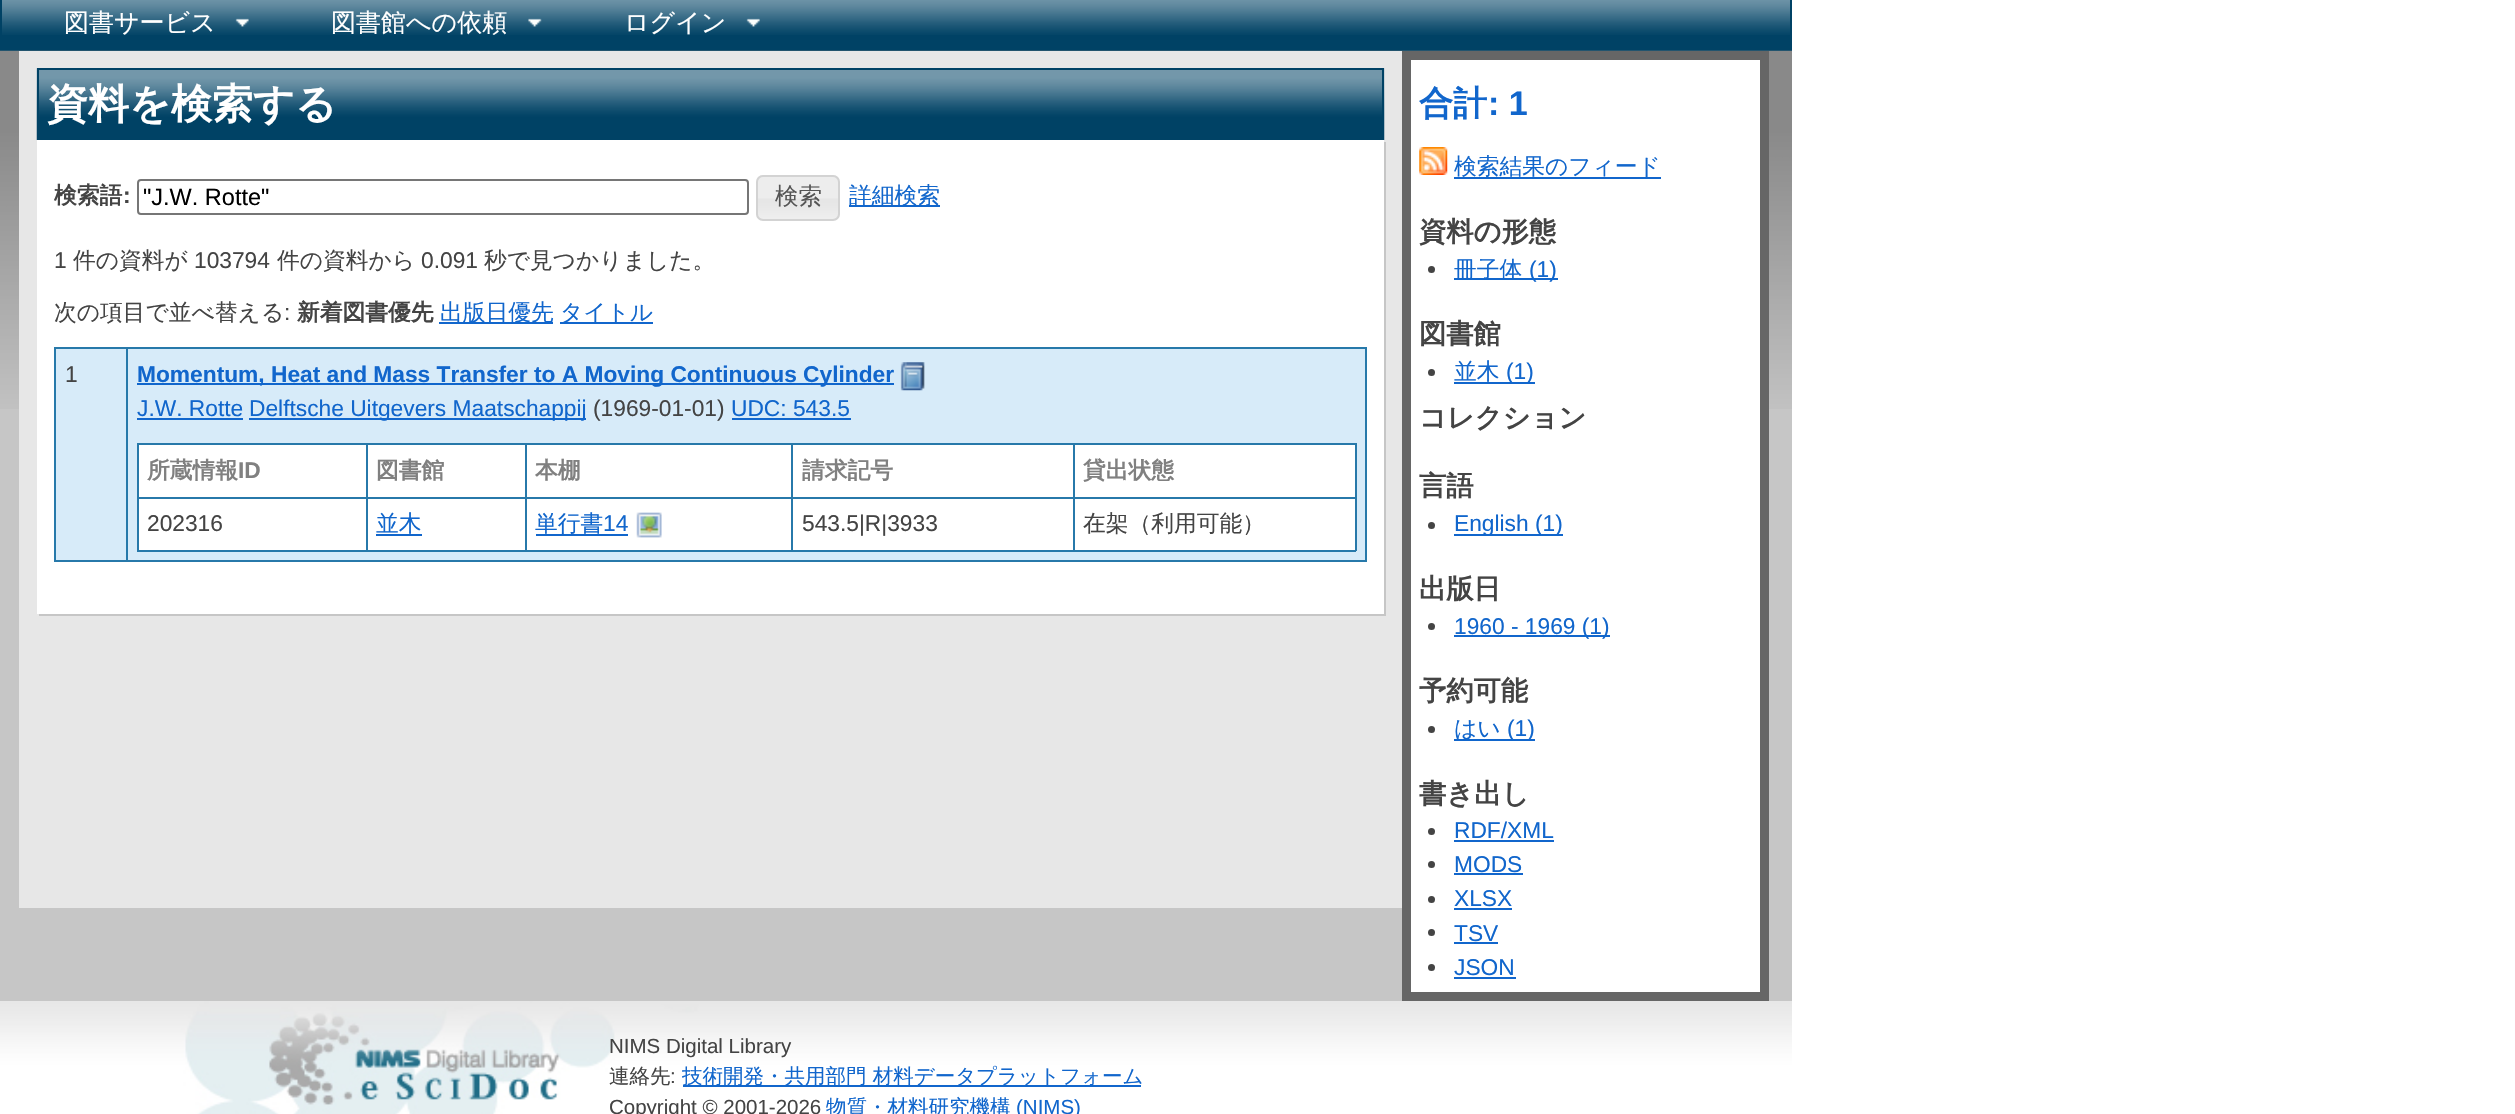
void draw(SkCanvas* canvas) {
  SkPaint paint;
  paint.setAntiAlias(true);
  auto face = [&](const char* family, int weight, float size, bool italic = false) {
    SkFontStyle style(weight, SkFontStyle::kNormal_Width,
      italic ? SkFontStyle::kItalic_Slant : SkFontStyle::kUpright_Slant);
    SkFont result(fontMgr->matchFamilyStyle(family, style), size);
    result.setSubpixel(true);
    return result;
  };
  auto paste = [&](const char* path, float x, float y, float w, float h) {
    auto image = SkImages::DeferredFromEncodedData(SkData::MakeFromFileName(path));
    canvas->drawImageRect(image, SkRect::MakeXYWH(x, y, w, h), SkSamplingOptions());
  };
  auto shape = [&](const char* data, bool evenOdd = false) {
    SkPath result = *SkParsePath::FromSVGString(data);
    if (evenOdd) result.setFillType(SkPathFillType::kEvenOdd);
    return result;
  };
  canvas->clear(0xffffffff);
  paint.setColor(0xff004265);
  canvas->drawRect(SkRect::MakeXYWH(2, 35, 1788, 14), paint);
  paste("img/1.png", 2, 0, 1788, 35);
  paint.setStroke(true);
  paint.setStrokeWidth(2);
  canvas->drawRect(SkRect::MakeXYWH(1, -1, 1790, 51), paint);
  paste("img/2.png", 235, 18, 14, 9);
  paste("img/3.png", 528, 18, 14, 9);
  paste("img/4.png", 746, 18, 14, 9);
  paint.setStroke(false);
  paint.setColor(0xffc6c6c6);
  canvas->drawRect(SkRect::MakeXYWH(0, 409, 1792, 592), paint);
  paste("img/5.png", 0, 50, 1792, 359);
  paint.setColor(0xffe7e7e7);
  canvas->drawRect(SkRect::MakeXYWH(19, 51, 1383, 857), paint);
  paste("img/6.png", 36, 68, 1349, 72);
  paint.setStroke(true);
  paint.setColor(0xff004265);
  canvas->drawRect(SkRect::MakeXYWH(38, 69, 1345, 70), paint);
  paint.setStroke(false);
  paint.setColor(0xffc6c6c6);
  canvas->drawPath(shape("M39 614V616H1386V142H1384V614Z"), paint);
  paint.setColor(0xffffffff);
  canvas->drawRect(SkRect::MakeXYWH(37, 140, 1347, 474), paint);
  paint.setStroke(true);
  paint.setColor(0xff767676);
  canvas->drawRoundRect(SkRect::MakeXYWH(138, 180, 610, 34), 3, 3, paint);
  paste("img/7.png", 756, 175, 84, 45);
  paint.setColor(0xffd3d3d3);
  canvas->drawRoundRect(SkRect::MakeXYWH(757, 176, 82, 44), 6, 6, paint);
  paint.setStroke(false);
  {
    const struct { float x, y, w, h; SkColor color; } items[] = {
      {849, 205, 91, 2, 0xff1166cc},
      {439, 322, 114, 2, 0xff1166cc},
      {560, 322, 93, 2, 0xff1166cc},
      {54, 347, 1313, 2, 0xff2779aa},
      {1365, 347, 2, 215, 0xff2779aa},
      {54, 560, 1313, 2, 0xff2779aa},
      {54, 347, 2, 215, 0xff2779aa},
      {56, 349, 1309, 211, 0xffd7ebf9},
      {126, 347, 2, 215, 0xff2779aa},
      {137, 383, 757, 2, 0xff1166cc},
    };
    for (auto [x, y, w, h, color] : items) {
      paint.setColor(color);
      canvas->drawRect(SkRect::MakeXYWH(x, y, w, h), paint);
    }
  }
  paste("img/8.png", 900, 362, 25, 29);
  {
    const struct { float x, y, w, h; SkColor color; } items[] = {
      {137, 418, 106, 2, 0xff1166cc},
      {249, 418, 337, 2, 0xff1166cc},
      {732, 418, 119, 2, 0xff1166cc},
      {139, 445, 1216, 105, 0xffffffff},
      {137, 443, 1219, 2, 0xff2779aa},
      {1355, 443, 2, 108, 0xff2779aa},
      {137, 550, 1219, 2, 0xff2779aa},
      {137, 443, 2, 108, 0xff2779aa},
      {1073, 497, 283, 2, 0xff2779aa},
      {1073, 497, 2, 54, 0xff2779aa},
      {791, 497, 284, 2, 0xff2779aa},
      {791, 497, 2, 54, 0xff2779aa},
      {525, 497, 268, 2, 0xff2779aa},
      {525, 497, 2, 54, 0xff2779aa},
      {366, 497, 161, 2, 0xff2779aa},
      {366, 497, 2, 54, 0xff2779aa},
      {137, 497, 231, 2, 0xff2779aa},
      {366, 443, 2, 56, 0xff2779aa},
      {525, 443, 2, 56, 0xff2779aa},
      {791, 443, 2, 56, 0xff2779aa},
      {1073, 443, 2, 56, 0xff2779aa},
      {376, 534, 46, 2, 0xff1166cc},
      {536, 534, 92, 2, 0xff1166cc},
    };
    for (auto [x, y, w, h, color] : items) {
      paint.setColor(color);
      canvas->drawRect(SkRect::MakeXYWH(x, y, w, h), paint);
    }
  }
  paste("img/9.png", 636, 512, 26, 26);
  paint.setColor(0xffffffff);
  canvas->drawRect(SkRect::MakeXYWH(1406.5f, 55.5f, 358, 941), paint);
  paint.setStroke(true);
  paint.setStrokeWidth(9);
  paint.setColor(0xff666666);
  canvas->drawRect(SkRect::MakeXYWH(1406.5f, 55.5f, 358, 941), paint);
  paste("img/10.png", 1419, 147, 29, 28);
  paint.setStroke(false);
  paint.setColor(0xff1166cc);
  canvas->drawRect(SkRect::MakeXYWH(1454, 177, 207, 2), paint);
  paint.setColor(0xff444444);
  canvas->drawCircle(1431.5f, 269.5f, 3.5f, paint);
  paint.setColor(0xff1166cc);
  canvas->drawRect(SkRect::MakeXYWH(1454, 278, 104, 2), paint);
  paint.setColor(0xff444444);
  canvas->drawCircle(1431.5f, 372.5f, 3.5f, paint);
  paint.setColor(0xff1166cc);
  canvas->drawRect(SkRect::MakeXYWH(1454, 382, 81, 2), paint);
  paint.setColor(0xff444444);
  canvas->drawCircle(1431.5f, 525.5f, 3.5f, paint);
  paint.setColor(0xff1166cc);
  canvas->drawRect(SkRect::MakeXYWH(1454, 534, 109, 2), paint);
  paint.setColor(0xff444444);
  canvas->drawCircle(1431.5f, 626.5f, 3.5f, paint);
  paint.setColor(0xff1166cc);
  canvas->drawRect(SkRect::MakeXYWH(1454, 635, 156, 2), paint);
  paint.setColor(0xff444444);
  canvas->drawCircle(1431.5f, 729.5f, 3.5f, paint);
  paint.setColor(0xff1166cc);
  canvas->drawRect(SkRect::MakeXYWH(1454, 739, 81, 2), paint);
  paint.setColor(0xff444444);
  canvas->drawCircle(1431.5f, 831.5f, 3.5f, paint);
  paint.setColor(0xff1166cc);
  canvas->drawRect(SkRect::MakeXYWH(1454, 840, 100, 2), paint);
  paint.setColor(0xff444444);
  canvas->drawCircle(1431.5f, 864.5f, 3.5f, paint);
  paint.setColor(0xff1166cc);
  canvas->drawRect(SkRect::MakeXYWH(1454, 873, 69, 2), paint);
  paint.setColor(0xff444444);
  canvas->drawCircle(1431.5f, 899.5f, 3.5f, paint);
  paint.setColor(0xff1166cc);
  canvas->drawRect(SkRect::MakeXYWH(1454, 908, 58, 2), paint);
  paint.setColor(0xff444444);
  canvas->drawCircle(1431.5f, 932.5f, 3.5f, paint);
  paint.setColor(0xff1166cc);
  canvas->drawRect(SkRect::MakeXYWH(1454, 942, 44, 2), paint);
  paint.setColor(0xff444444);
  canvas->drawCircle(1431.5f, 967.5f, 3.5f, paint);
  paint.setColor(0xff1166cc);
  canvas->drawRect(SkRect::MakeXYWH(1454, 977, 62, 2), paint);
  paste("img/11.png", 0, 1001, 1792, 113);
  canvas->drawRect(SkRect::MakeXYWH(683, 1085, 458, 2), paint);
  auto f0 = face("WenQuanYi Zen Hei", 500, 25);
  paint.setColor(0xffffffff);
  {
    const struct { const char* s; float x, y; } items[] = {
      {"図書サービス", 64, 31},
      {"図書館への依頼", 331, 31},
      {"ログイン", 624, 31},
    };
    for (auto [s, x, y] : items) {
      canvas->drawString(s, x, y, f0, paint);
    }
  }
  auto f1 = face("WenQuanYi Zen Hei", 700, 41);
  canvas->drawString("資料を検索する", 47, 118, f1, paint);
  auto f2 = face("WenQuanYi Zen Hei", 700, 22.75f);
  paint.setColor(0xff444444);
  canvas->drawString("検索語", 54, 203, f2, paint);
  auto f3 = face("Liberation Sans", 700, 22.75f);
  canvas->drawString(":", 123, 203, f3, paint);
  auto f4 = face("Liberation Sans", 400, 23.5f);
  paint.setColor(0xff000000);
  canvas->drawString("\"J.W. Rotte\"", 143, 205, f4, paint);
  auto f5 = face("WenQuanYi Zen Hei", 500, 23.5f);
  paint.setColor(0xff555555);
  canvas->drawString("検索", 775, 204, f5, paint);
  auto f6 = face("WenQuanYi Zen Hei", 500, 22.75f);
  paint.setColor(0xff1166cc);
  canvas->drawString("詳細検索", 849, 203, f6, paint);
  auto f7 = face("Liberation Sans", 400, 22.75f);
  paint.setColor(0xff444444);
  canvas->drawString("1", 54, 268, f7, paint);
  canvas->drawString("件の資料が", 73, 268, f6, paint);
  canvas->drawString("103794", 194, 268, f7, paint);
  canvas->drawString("件の資料から", 277, 268, f6, paint);
  canvas->drawString("0.091", 421, 268, f7, paint);
  canvas->drawString("秒で見つかりました。", 484, 268, f6, paint);
  canvas->drawString("次の項目で並べ替える", 54, 320, f6, paint);
  canvas->drawString(":", 284, 320, f7, paint);
  canvas->drawString("新着図書優先", 297, 320, f2, paint);
  paint.setColor(0xff1166cc);
  canvas->drawString("出版日優先", 440, 320, f6, paint);
  canvas->drawString("タイトル", 560, 320, f6, paint);
  paint.setColor(0xff444444);
  canvas->drawString("1", 65, 382, f7, paint);
  paint.setColor(0xff1166cc);
  canvas->drawString("Momentum, Heat and Mass Transfer to A Moving Continuous Cylinder", 137, 382, f3, paint);
  canvas->drawString("J.W. Rotte", 137, 416, f7, paint);
  canvas->drawString("Delftsche Uitgevers Maatschappij", 249, 416, f7, paint);
  paint.setColor(0xff444444);
  canvas->drawString("(1969-01-01)", 593, 416, f7, paint);
  paint.setColor(0xff1166cc);
  canvas->drawString("UDC: 543.5", 731, 416, f7, paint);
  paint.setColor(0xff808080);
  canvas->drawString("所蔵情報", 147, 478, f2, paint);
  canvas->drawString("ID", 238, 478, f3, paint);
  {
    const struct { const char* s; float x, y; } items[] = {
      {"図書館", 376, 478},
      {"本棚", 535, 478},
      {"請求記号", 802, 478},
      {"貸出状態", 1083, 478},
    };
    for (auto [s, x, y] : items) {
      canvas->drawString(s, x, y, f2, paint);
    }
  }
  paint.setColor(0xff444444);
  canvas->drawString("202316", 147, 531, f7, paint);
  paint.setColor(0xff1166cc);
  canvas->drawString("並木", 376, 531, f6, paint);
  canvas->drawString("単行書", 535, 531, f6, paint);
  canvas->drawString("14", 603, 531, f7, paint);
  paint.setColor(0xff444444);
  canvas->drawString("543.5|R|3933", 802, 531, f7, paint);
  canvas->drawString("在架（利用可能）", 1083, 531, f6, paint);
  auto f8 = face("WenQuanYi Zen Hei", 700, 34);
  paint.setColor(0xff1166cc);
  canvas->drawString("合計", 1419, 115, f8, paint);
  auto f9 = face("Liberation Sans", 700, 34);
  canvas->drawString(": 1", 1488, 115, f9, paint);
  canvas->drawString("検索結果のフィード", 1454, 174, f6, paint);
  auto f10 = face("WenQuanYi Zen Hei", 700, 27.25f);
  paint.setColor(0xff444444);
  canvas->drawString("資料の形態", 1419, 241, f10, paint);
  paint.setColor(0xff1166cc);
  canvas->drawString("冊子体", 1454, 277, f6, paint);
  canvas->drawString("(1)", 1529, 277, f7, paint);
  paint.setColor(0xff444444);
  canvas->drawString("図書館", 1419, 343, f10, paint);
  paint.setColor(0xff1166cc);
  canvas->drawString("並木", 1454, 379, f6, paint);
  canvas->drawString("(1)", 1506, 379, f7, paint);
  paint.setColor(0xff444444);
  canvas->drawString("コレクション", 1419, 427, f10, paint);
  canvas->drawString("言語", 1419, 495, f10, paint);
  paint.setColor(0xff1166cc);
  canvas->drawString("English (1)", 1454, 531, f7, paint);
  paint.setColor(0xff444444);
  canvas->drawString("出版日", 1419, 598, f10, paint);
  paint.setColor(0xff1166cc);
  canvas->drawString("1960 - 1969 (1)", 1454, 634, f7, paint);
  paint.setColor(0xff444444);
  canvas->drawString("予約可能", 1419, 700, f10, paint);
  paint.setColor(0xff1166cc);
  canvas->drawString("はい", 1454, 736, f6, paint);
  canvas->drawString("(1)", 1507, 736, f7, paint);
  paint.setColor(0xff444444);
  canvas->drawString("書き出し", 1419, 803, f10, paint);
  paint.setColor(0xff1166cc);
  {
    const struct { const char* s; float x, y; } items[] = {
      {"RDF/XML", 1454, 838},
      {"MODS", 1454, 872},
      {"XLSX", 1454, 906},
      {"TSV", 1454, 941},
      {"JSON", 1454, 975},
    };
    for (auto [s, x, y] : items) {
      canvas->drawString(s, x, y, f7, paint);
    }
  }
  auto f11 = face("Liberation Sans", 400, 20.5f);
  paint.setColor(0xff444444);
  canvas->drawString("NIMS Digital Library", 609, 1053, f11, paint);
  auto f12 = face("WenQuanYi Zen Hei", 500, 20.5f);
  canvas->drawString("連絡先", 609, 1083, f12, paint);
  canvas->drawString(":", 670, 1083, f11, paint);
  paint.setColor(0xff1166cc);
  canvas->drawString("技術開発・共用部門 材料データプラットフォーム", 682, 1083, f12, paint);
  paint.setColor(0xff444444);
  canvas->drawString("Copyright © 2001-2026", 609, 1114, f11, paint);
  paint.setColor(0xff1166cc);
  canvas->drawString("物質・材料研究機構", 826, 1114, f12, paint);
  canvas->drawString("(NIMS)", 1016, 1114, f11, paint);
}
